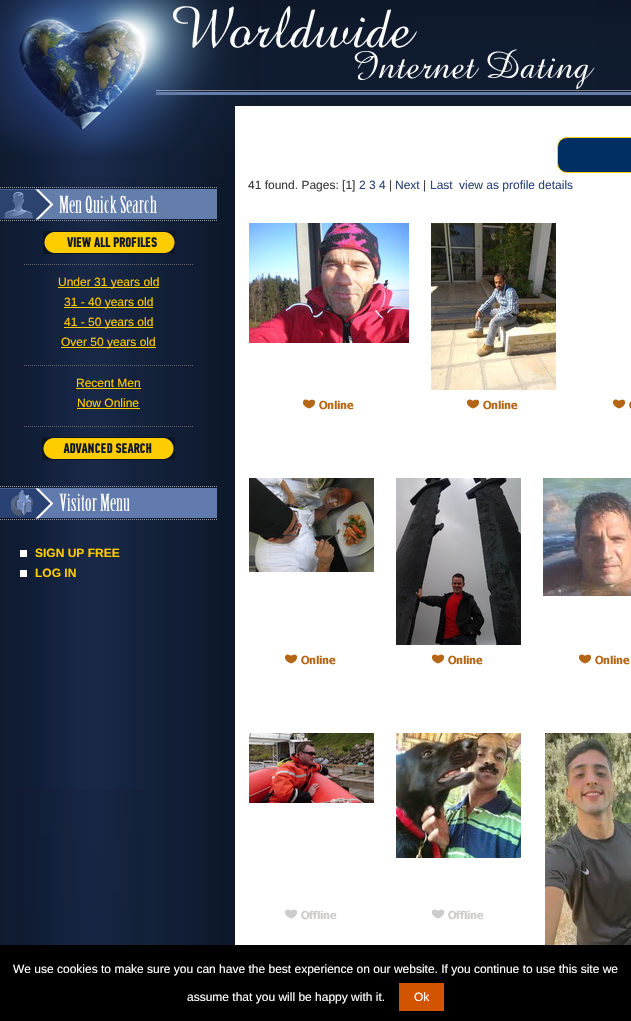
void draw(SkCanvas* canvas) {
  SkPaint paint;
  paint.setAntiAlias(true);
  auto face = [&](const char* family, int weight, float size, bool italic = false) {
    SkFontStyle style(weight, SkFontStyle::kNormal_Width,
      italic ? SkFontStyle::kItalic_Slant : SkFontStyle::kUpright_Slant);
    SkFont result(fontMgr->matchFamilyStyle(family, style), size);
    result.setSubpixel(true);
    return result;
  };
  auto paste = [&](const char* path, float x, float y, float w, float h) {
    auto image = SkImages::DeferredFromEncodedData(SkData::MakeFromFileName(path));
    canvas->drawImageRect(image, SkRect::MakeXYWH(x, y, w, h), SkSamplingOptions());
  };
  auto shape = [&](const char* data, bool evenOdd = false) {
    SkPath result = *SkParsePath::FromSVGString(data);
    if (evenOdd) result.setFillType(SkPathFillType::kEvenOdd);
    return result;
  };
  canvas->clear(0xffffffff);
  paste("img/1.png", 0, 178, 236, 767);
  paste("img/2.png", 598, 0, 33, 178);
  paste("img/3.png", 16, 789, 128, 156);
  paste("img/4.png", 0, 0, 598, 178);
  paint.setColor(0xff003063);
  canvas->drawRoundRect(SkRect::MakeXYWH(557.5f, 137.5f, 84, 35), 9.5f, 9.5f, paint);
  paint.setStroke(true);
  paint.setStrokeWidth(1);
  paint.setColor(0xffffcc00);
  canvas->drawRoundRect(SkRect::MakeXYWH(557.5f, 137.5f, 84, 35), 9.5f, 9.5f, paint);
  paste("img/5.png", 249, 223, 160, 120);
  paste("img/6.png", 303, 399, 51, 11);
  paste("img/7.png", 431, 223, 125, 167);
  paste("img/6.png", 467, 399, 51, 11);
  paste("img/8.png", 613, 399, 18, 10);
  paste("img/9.png", 249, 478, 125, 94);
  paste("img/6.png", 285, 654, 51, 11);
  paste("img/10.png", 396, 478, 125, 167);
  paste("img/6.png", 432, 654, 51, 11);
  paste("img/11.png", 543, 478, 88, 118);
  paste("img/6.png", 579, 654, 51, 11);
  paste("img/12.png", 249, 733, 125, 70);
  paste("img/13.png", 285, 909, 52, 11);
  paste("img/14.png", 396, 733, 125, 125);
  paste("img/13.png", 432, 909, 52, 11);
  paste("img/15.png", 545, 733, 86, 212);
  paste("img/16.png", 0, 187, 217, 34);
  paste("img/17.png", 43, 231, 132, 23);
  paint.setColor(0xff666666);
  paint.setPathEffect(SkDashPathEffect::Make({{1, 1}}, 0));
  canvas->drawPath(shape("M24 264.5H193"), paint);
  paint.setPathEffect(nullptr);
  paint.setStroke(false);
  {
    const struct { float x, y, w, h; SkColor color; } items[] = {
      {58, 287, 101, 1, 0xffffcc00},
      {64, 307, 89, 1, 0xffffcc00},
      {64, 327, 89, 1, 0xffffcc00},
      {61, 347, 95, 1, 0xffffcc00},
    };
    for (auto [x, y, w, h, color] : items) {
      paint.setColor(color);
      canvas->drawRect(SkRect::MakeXYWH(x, y, w, h), paint);
    }
  }
  paint.setStroke(true);
  paint.setColor(0xff666666);
  paint.setPathEffect(SkDashPathEffect::Make({{1, 1}}, 0));
  canvas->drawPath(shape("M24 365.5H193"), paint);
  paint.setPathEffect(nullptr);
  paint.setStroke(false);
  paint.setColor(0xffffcc00);
  canvas->drawRect(SkRect::MakeXYWH(76, 388, 65, 1), paint);
  canvas->drawRect(SkRect::MakeXYWH(77, 408, 63, 1), paint);
  paint.setStroke(true);
  paint.setColor(0xff666666);
  paint.setPathEffect(SkDashPathEffect::Make({{1, 1}}, 0));
  canvas->drawPath(shape("M24 426.5H193"), paint);
  paint.setPathEffect(nullptr);
  paste("img/18.png", 42, 437, 133, 23);
  paste("img/19.png", 0, 486, 217, 34);
  paint.setStroke(false);
  {
    const struct { float x, y, w, h; SkColor color; } items[] = {
      {20, 550, 7, 7, 0xffffffff},
      {20, 570, 7, 7, 0xffffffff},
      {0, 945, 631, 76, 0xff000000},
      {399, 983, 45, 28, 0xffd35400},
    };
    for (auto [x, y, w, h, color] : items) {
      paint.setColor(color);
      canvas->drawRect(SkRect::MakeXYWH(x, y, w, h), paint);
    }
  }
  auto f0 = face("Liberation Sans", 400, 12);
  paint.setColor(0xff3c393b);
  canvas->drawString("41 found. Pages: [1]", 248, 189, f0, paint);
  paint.setColor(0xff2d447a);
  canvas->drawString("2 3 4", 359, 189, f0, paint);
  paint.setColor(0xff3c393b);
  canvas->drawString("|", 389, 189, f0, paint);
  paint.setColor(0xff2d447a);
  canvas->drawString("Next", 395, 189, f0, paint);
  paint.setColor(0xff3c393b);
  canvas->drawString("|", 423, 189, f0, paint);
  paint.setColor(0xff2d447a);
  canvas->drawString("Last", 430, 189, f0, paint);
  canvas->drawString("view as profile details", 459, 189, f0, paint);
  paint.setColor(0xffffcc00);
  {
    const struct { const char* s; float x, y; } items[] = {
      {"Under 31 years old", 58, 286},
      {"31 - 40 years old", 64, 306},
      {"41 - 50 years old", 64, 326},
      {"Over 50 years old", 61, 346},
      {"Recent Men", 76, 387},
      {"Now Online", 77, 407},
    };
    for (auto [s, x, y] : items) {
      canvas->drawString(s, x, y, f0, paint);
    }
  }
  auto f1 = face("Liberation Sans", 700, 12);
  canvas->drawString("SIGN UP FREE", 35, 557, f1, paint);
  canvas->drawString("LOG IN", 35, 577, f1, paint);
  paint.setColor(0xffffffff);
  {
    const struct { const char* s; float x, y; } items[] = {
      {"We use cookies to make sure you can have the best experience on our website. If you continue to use this site we", 13, 973},
      {"assume that you will be happy with it.", 187, 1001},
      {"Ok", 414, 1001},
    };
    for (auto [s, x, y] : items) {
      canvas->drawString(s, x, y, f0, paint);
    }
  }
}
